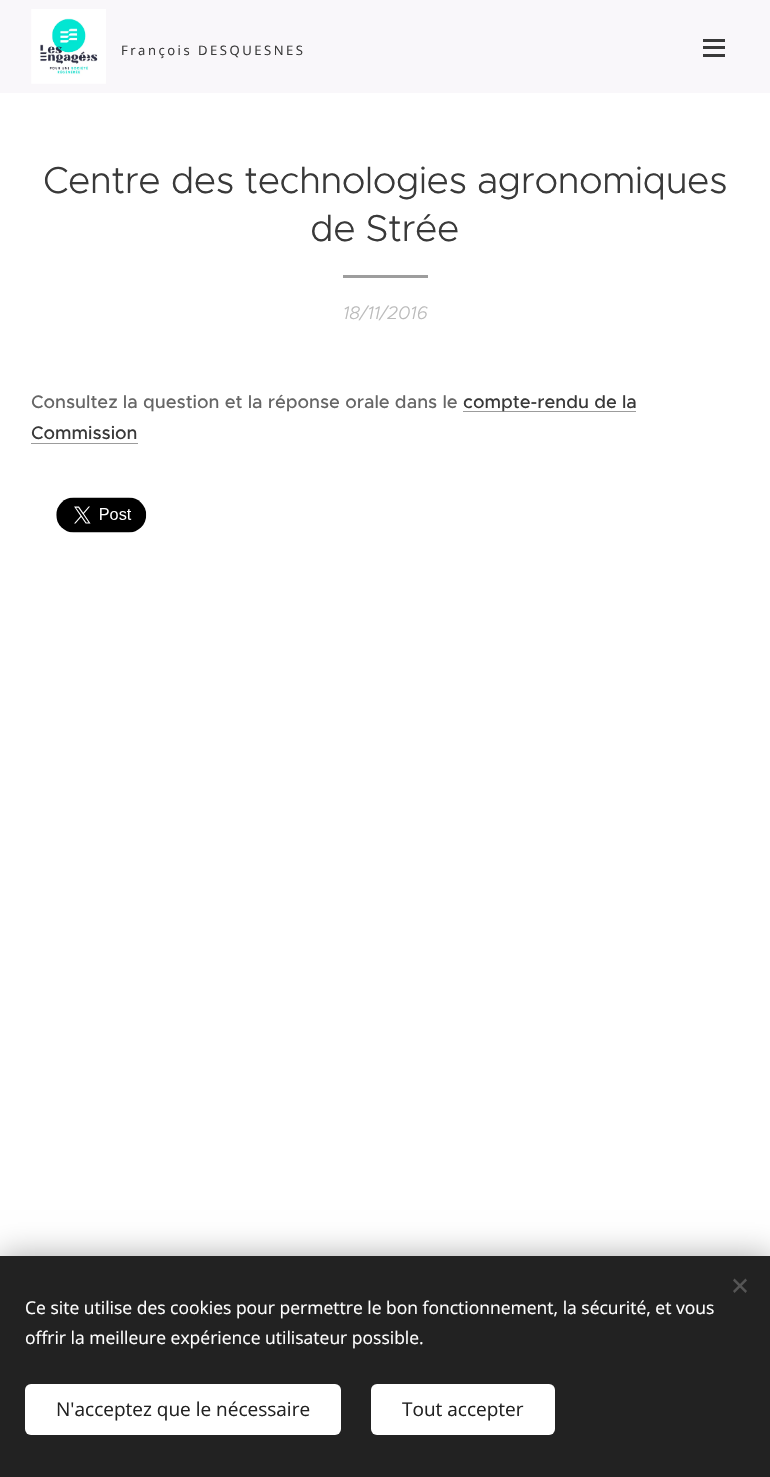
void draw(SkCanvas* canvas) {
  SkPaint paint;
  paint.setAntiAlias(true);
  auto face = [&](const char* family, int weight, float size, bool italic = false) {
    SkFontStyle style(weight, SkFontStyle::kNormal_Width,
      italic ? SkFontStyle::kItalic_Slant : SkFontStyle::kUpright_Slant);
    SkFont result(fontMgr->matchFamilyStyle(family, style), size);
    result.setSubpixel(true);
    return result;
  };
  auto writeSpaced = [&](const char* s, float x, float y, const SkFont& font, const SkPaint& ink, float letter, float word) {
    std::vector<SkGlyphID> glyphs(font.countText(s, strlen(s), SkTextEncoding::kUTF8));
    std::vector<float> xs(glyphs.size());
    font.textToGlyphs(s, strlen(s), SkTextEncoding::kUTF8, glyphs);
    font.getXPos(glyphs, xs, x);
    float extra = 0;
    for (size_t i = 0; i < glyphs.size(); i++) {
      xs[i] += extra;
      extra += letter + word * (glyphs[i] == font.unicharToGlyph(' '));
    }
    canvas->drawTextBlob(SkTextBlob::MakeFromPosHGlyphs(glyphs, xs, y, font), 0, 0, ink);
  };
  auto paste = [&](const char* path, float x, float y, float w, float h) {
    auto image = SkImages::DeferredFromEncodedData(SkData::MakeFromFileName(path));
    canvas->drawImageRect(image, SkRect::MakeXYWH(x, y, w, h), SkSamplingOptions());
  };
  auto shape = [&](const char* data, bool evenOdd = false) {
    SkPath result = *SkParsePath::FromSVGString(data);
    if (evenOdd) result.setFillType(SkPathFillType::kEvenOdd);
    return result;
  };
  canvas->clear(0xffffffff);
  paint.setColor(0xfff9f7fa);
  canvas->drawRect(SkRect::MakeXYWH(0, 0, 770, 93), paint);
  paste("img/1.png", 31, 9, 75, 75);
  {
    const struct { float x, y, w, h; SkColor color; } items[] = {
      {703, 46, 22, 3, 0xff393939},
      {703, 39, 22, 3, 0xff393939},
      {703, 54, 22, 3, 0xff393939},
      {343, 275, 85, 3, 0xff9d9d9d},
      {463, 411, 173, 1, 0xff9c9c9c},
      {31, 443, 107, 1, 0xff9c9c9c},
    };
    for (auto [x, y, w, h, color] : items) {
      paint.setColor(color);
      canvas->drawRect(SkRect::MakeXYWH(x, y, w, h), paint);
    }
  }
  paste("img/2.png", 56, 497, 91, 36);
  paint.setColor(0x54000000);
  paint.setMaskFilter(SkMaskFilter::MakeBlur(kNormal_SkBlurStyle, 15.5f));
  canvas->drawRect(SkRect::MakeXYWH(0, 1256, 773, 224), paint);
  paint.setMaskFilter(nullptr);
  paint.setColor(0xff222222);
  canvas->drawRect(SkRect::MakeXYWH(0, 1256, 770, 221), paint);
  paint.setColor(0xff555555);
  canvas->drawPath(shape("M733 1291L745.5 1278.5L747 1280.5L734.5 1293Z"), paint);
  canvas->drawPath(shape("M734.5 1278.5L747 1291L745.5 1293L733 1280.5Z"), paint);
  paint.setColor(0xffffffff);
  canvas->drawRoundRect(SkRect::MakeXYWH(25, 1384, 316, 51), 6, 6, paint);
  canvas->drawRoundRect(SkRect::MakeXYWH(371, 1384, 184, 51), 6, 6, paint);
  auto f0 = face("Open Sans", 400, 13.1f);
  paint.setColor(0xff393939);
  writeSpaced("François DESQUESNES", 121, 55, f0, paint, 2.5f, 0);
  auto f1 = face("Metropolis", 300, 37.5f);
  writeSpaced("Centre des technologies agronomiques", 43, 193, f1, paint, -0.4f, 0);
  writeSpaced("de Strée", 310, 241, f1, paint, -0.4f, 0);
  auto f2 = face("Metropolis", 300, 18.25f, true);
  paint.setColor(0xffbababa);
  canvas->drawString("18/11/2016", 343, 319, f2, paint);
  auto f3 = face("Metropolis", 500, 18.25f);
  paint.setColor(0xff666666);
  canvas->drawString("Consultez la question et la réponse orale dans le", 31, 408, f3, paint);
  paint.setColor(0xff393939);
  canvas->drawString("compte-rendu de la", 463, 408, f3, paint);
  canvas->drawString("Commission", 31, 439, f3, paint);
  auto f4 = face("Open Sans", 400, 17.5f);
  paint.setColor(0xffffffff);
  canvas->drawString("Ce site utilise des cookies pour permettre le bon fonctionnement, la sécurité, et vous", 25, 1314, f4, paint);
  canvas->drawString("offrir la meilleure expérience utilisateur possible.", 25, 1344, f4, paint);
  auto f5 = face("Open Sans", 400, 19);
  paint.setColor(0xff222222);
  canvas->drawString("N'acceptez que le nécessaire", 56, 1416, f5, paint);
  canvas->drawString("Tout accepter", 402, 1416, f5, paint);
}
